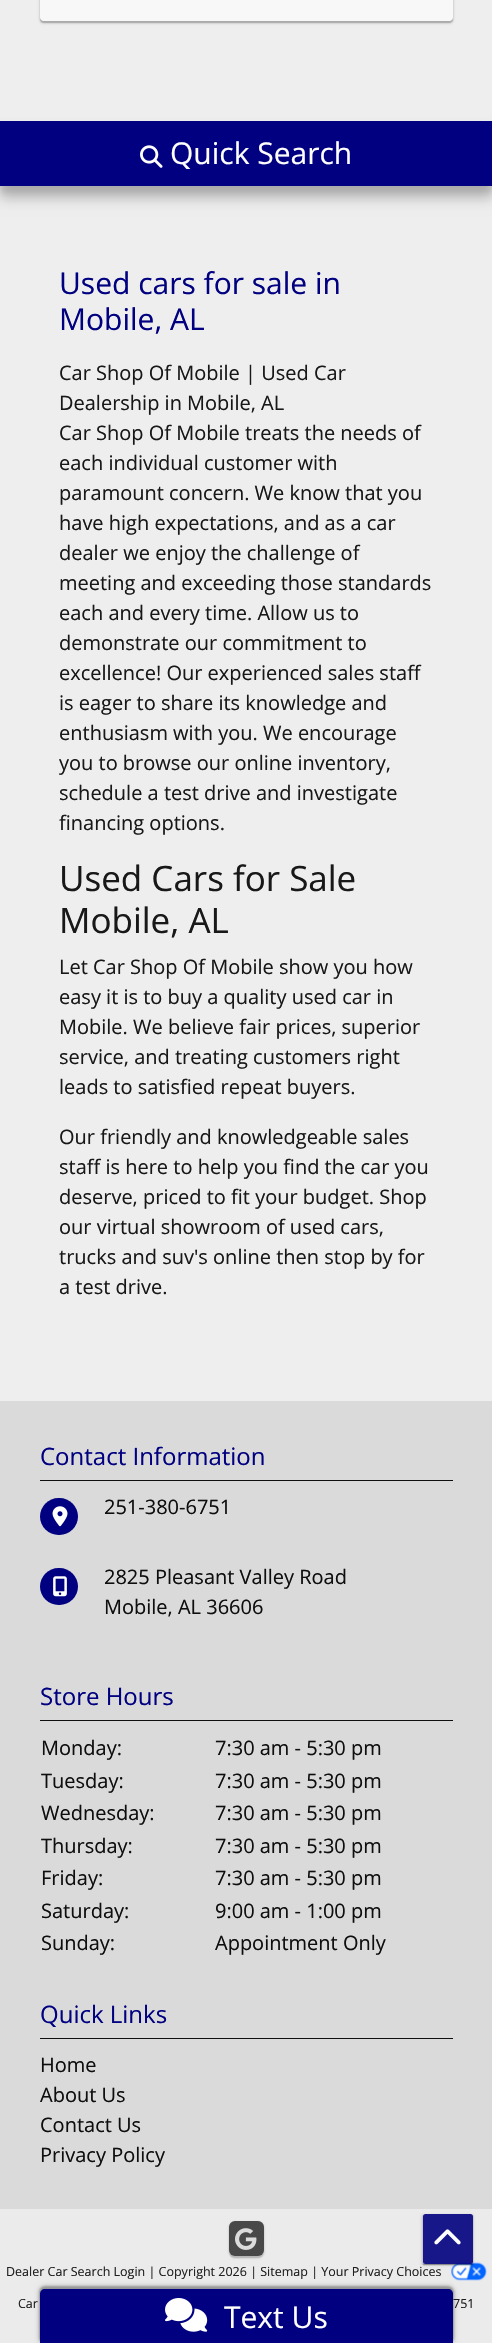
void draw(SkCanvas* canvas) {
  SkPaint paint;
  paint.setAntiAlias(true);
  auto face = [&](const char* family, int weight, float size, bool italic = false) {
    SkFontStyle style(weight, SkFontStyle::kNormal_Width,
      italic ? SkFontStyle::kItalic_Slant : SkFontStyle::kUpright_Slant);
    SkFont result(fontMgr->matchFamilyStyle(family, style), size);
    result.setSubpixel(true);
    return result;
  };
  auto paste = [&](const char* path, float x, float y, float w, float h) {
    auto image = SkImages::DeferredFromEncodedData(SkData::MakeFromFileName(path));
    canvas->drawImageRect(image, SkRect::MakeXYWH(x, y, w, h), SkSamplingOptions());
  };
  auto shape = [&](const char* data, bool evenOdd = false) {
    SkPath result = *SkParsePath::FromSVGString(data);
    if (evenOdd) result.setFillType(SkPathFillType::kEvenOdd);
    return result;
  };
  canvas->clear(0xffeeeeee);
  canvas->save();
  canvas->clipPath(shape("M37 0H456V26H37ZM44-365H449C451-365 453-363 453-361V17C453 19 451 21 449 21H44C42 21 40 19 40 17V-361C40-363 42-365 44-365Z", true), true);
  paint.setColor(0x33000000);
  paint.setMaskFilter(SkMaskFilter::MakeBlur(kNormal_SkBlurStyle, 0.5f));
  canvas->drawRoundRect(SkRect::MakeXYWH(40, -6, 413, 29), 4, 4, paint);
  paint.setMaskFilter(nullptr);
  canvas->restore();
  canvas->save();
  canvas->clipPath(shape("M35 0H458V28H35ZM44-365H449C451-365 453-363 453-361V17C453 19 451 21 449 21H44C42 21 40 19 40 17V-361C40-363 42-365 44-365Z", true), true);
  paint.setColor(0x1a000000);
  paint.setMaskFilter(SkMaskFilter::MakeBlur(kNormal_SkBlurStyle, 1));
  canvas->drawRoundRect(SkRect::MakeXYWH(39, -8, 415, 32), 5, 5, paint);
  paint.setMaskFilter(nullptr);
  canvas->restore();
  paint.setColor(0x99ffffff);
  canvas->drawRoundRect(SkRect::MakeXYWH(40, -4, 413, 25), 4, 4, paint);
  paint.setColor(0x1a000000);
  paint.setMaskFilter(SkMaskFilter::MakeBlur(kNormal_SkBlurStyle, 3));
  canvas->drawRect(SkRect::MakeXYWH(0, 128, 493, 65), paint);
  paint.setMaskFilter(nullptr);
  paint.setColor(0x33000000);
  paint.setMaskFilter(SkMaskFilter::MakeBlur(kNormal_SkBlurStyle, 6));
  canvas->drawRect(SkRect::MakeXYWH(0, 134, 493, 65), paint);
  paint.setMaskFilter(nullptr);
  paint.setColor(0xff000080);
  canvas->drawRect(SkRect::MakeXYWH(0, 121, 492, 65), paint);
  paste("img/1.png", 140, 145, 23, 23);
  paint.setColor(0xffdadada);
  canvas->drawRect(SkRect::MakeXYWH(0, 1401, 492, 808), paint);
  paint.setColor(0xff0e0e0e);
  canvas->drawRect(SkRect::MakeXYWH(40, 1480, 413, 1), paint);
  paint.setColor(0xff000080);
  canvas->drawRoundRect(SkRect::MakeXYWH(40, 1498, 38, 37), 18.5f, 18.5f, paint);
  paste("img/2.png", 52, 1506, 16, 21);
  canvas->drawRoundRect(SkRect::MakeXYWH(40, 1568, 38, 37), 18.5f, 18.5f, paint);
  paste("img/3.png", 53, 1576, 14, 21);
  {
    const struct { float x, y, w, h; SkColor color; } items[] = {
      {40, 1720, 413, 1, 0xff0e0e0e},
      {40, 2038, 413, 1, 0xff0e0e0e},
      {0, 2209, 492, 134, 0xffebebeb},
    };
    for (auto [x, y, w, h, color] : items) {
      paint.setColor(color);
      canvas->drawRect(SkRect::MakeXYWH(x, y, w, h), paint);
    }
  }
  paint.setColor(0x332f2f2f);
  paint.setMaskFilter(SkMaskFilter::MakeBlur(kNormal_SkBlurStyle, 0.5f));
  canvas->drawRoundRect(SkRect::MakeXYWH(229, 2223, 35, 35), 6, 6, paint);
  paint.setMaskFilter(nullptr);
  paint.setColor(0x1a2f2f2f);
  paint.setMaskFilter(SkMaskFilter::MakeBlur(kNormal_SkBlurStyle, 1));
  canvas->drawRoundRect(SkRect::MakeXYWH(228, 2221, 37, 38), 8, 8, paint);
  paint.setMaskFilter(nullptr);
  paint.setColor(0xff484848);
  canvas->drawRoundRect(SkRect::MakeXYWH(229, 2221, 35, 35), 6, 6, paint);
  paste("img/4.png", 235, 2228, 22, 22);
  paste("img/5.png", 451, 2262, 36, 19);
  canvas->save();
  canvas->clipPath(shape("M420 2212H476V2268H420ZM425.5 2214H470.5C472 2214 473 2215 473 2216.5V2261.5C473 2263 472 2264 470.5 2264H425.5C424 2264 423 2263 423 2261.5V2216.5C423 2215 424 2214 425.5 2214Z", true), true);
  paint.setColor(0x33000000);
  paint.setMaskFilter(SkMaskFilter::MakeBlur(kNormal_SkBlurStyle, 0.5f));
  canvas->drawRoundRect(SkRect::MakeXYWH(423, 2215, 50, 50), 2.5f, 2.5f, paint);
  paint.setMaskFilter(nullptr);
  canvas->restore();
  canvas->save();
  canvas->clipPath(shape("M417 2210H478V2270H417ZM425.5 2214H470.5C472 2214 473 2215 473 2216.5V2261.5C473 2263 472 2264 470.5 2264H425.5C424 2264 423 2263 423 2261.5V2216.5C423 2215 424 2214 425.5 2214Z", true), true);
  paint.setColor(0x1a000000);
  paint.setMaskFilter(SkMaskFilter::MakeBlur(kNormal_SkBlurStyle, 1));
  canvas->drawRoundRect(SkRect::MakeXYWH(421, 2214, 53, 52), 4, 4, paint);
  paint.setMaskFilter(nullptr);
  canvas->restore();
  paint.setColor(0xe6000080);
  canvas->drawRoundRect(SkRect::MakeXYWH(423, 2214, 50, 50), 2.5f, 2.5f, paint);
  canvas->save();
  canvas->clipPath(shape("M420 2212H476V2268H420ZM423 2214H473V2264H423Z", true), true);
  paint.setColor(0x33000000);
  paint.setMaskFilter(SkMaskFilter::MakeBlur(kNormal_SkBlurStyle, 0.5f));
  canvas->drawRect(SkRect::MakeXYWH(423, 2215, 50, 50), paint);
  paint.setMaskFilter(nullptr);
  canvas->restore();
  paste("img/6.png", 434, 2229, 27, 16);
  paint.setColor(0x40000000);
  paint.setMaskFilter(SkMaskFilter::MakeBlur(kNormal_SkBlurStyle, 1));
  canvas->drawRoundRect(SkRect::MakeXYWH(39, 2286, 415, 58), 6, 6, paint);
  paint.setMaskFilter(nullptr);
  paint.setColor(0x26000000);
  paint.setMaskFilter(SkMaskFilter::MakeBlur(kNormal_SkBlurStyle, 2));
  canvas->drawRoundRect(SkRect::MakeXYWH(38, 2285, 417, 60), 8, 8, paint);
  paint.setMaskFilter(nullptr);
  paint.setColor(0xff000080);
  canvas->drawPath(shape("M45 2289H448C451 2289 453 2291 453 2294V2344H40V2294C40 2291 42 2289 45 2289Z"), paint);
  paste("img/7.png", 165, 2298, 43, 34);
  auto f0 = face("Open Sans", 400, 30);
  paint.setColor(0xffffffff);
  canvas->drawString("Quick Search", 170, 164, f0, paint);
  paint.setColor(0xff000080);
  canvas->drawString("Used cars for sale in", 59, 294, f0, paint);
  canvas->drawString("Mobile, AL", 59, 330, f0, paint);
  auto f1 = face("Open Sans", 400, 20);
  paint.setColor(0xff181818);
  {
    const struct { const char* s; float x, y; } items[] = {
      {"Car Shop Of Mobile | Used Car", 59, 380},
      {"Dealership in Mobile, AL", 59, 410},
      {"Car Shop Of Mobile treats the needs of", 59, 440},
      {"each individual customer with", 59, 470},
      {"paramount concern. We know that you", 59, 500},
      {"have high expectations, and as a car", 59, 530},
      {"dealer we enjoy the challenge of", 59, 560},
      {"meeting and exceeding those standards", 59, 590},
      {"each and every time. Allow us to", 59, 620},
      {"demonstrate our commitment to", 59, 650},
      {"excellence! Our experienced sales staff", 59, 680},
      {"is eager to share its knowledge and", 59, 710},
      {"enthusiasm with you. We encourage", 59, 740},
      {"you to browse our online inventory,", 59, 770},
      {"schedule a test drive and investigate", 59, 800},
      {"financing options.", 59, 830},
    };
    for (auto [s, x, y] : items) {
      canvas->drawString(s, x, y, f1, paint);
    }
  }
  auto f2 = face("Open Sans", 400, 35);
  canvas->drawString("Used Cars for Sale", 59, 891, f2, paint);
  canvas->drawString("Mobile, AL", 59, 933, f2, paint);
  {
    const struct { const char* s; float x, y; } items[] = {
      {"Let Car Shop Of Mobile show you how", 59, 974},
      {"easy it is to buy a quality used car in", 59, 1004},
      {"Mobile. We believe fair prices, superior", 59, 1034},
      {"service, and treating customers right", 59, 1064},
      {"leads to satisfied repeat buyers.", 59, 1094},
      {"Our friendly and knowledgeable sales", 59, 1144},
      {"staff is here to help you find the car you", 59, 1174},
      {"deserve, priced to fit your budget. Shop", 59, 1204},
      {"our virtual showroom of used cars,", 59, 1234},
      {"trucks and suv's online then stop by for", 59, 1264},
      {"a test drive.", 59, 1294},
    };
    for (auto [s, x, y] : items) {
      canvas->drawString(s, x, y, f1, paint);
    }
  }
  auto f3 = face("Open Sans", 400, 24);
  paint.setColor(0xff000080);
  canvas->drawString("Contact Information", 40, 1465, f3, paint);
  paint.setColor(0xff0e0e0e);
  {
    const struct { const char* s; float x, y; } items[] = {
      {"251-380-6751", 104, 1514},
      {"2825 Pleasant Valley Road", 104, 1584},
      {"Mobile, AL 36606", 104, 1614},
    };
    for (auto [s, x, y] : items) {
      canvas->drawString(s, x, y, f1, paint);
    }
  }
  paint.setColor(0xff000080);
  canvas->drawString("Store Hours", 40, 1705, f3, paint);
  paint.setColor(0xff0e0e0e);
  {
    const struct { const char* s; float x, y; } items[] = {
      {"Monday:", 41, 1755},
      {"7:30 am - 5:30 pm", 215, 1755},
      {"Tuesday:", 41, 1788},
      {"7:30 am - 5:30 pm", 215, 1788},
      {"Wednesday:", 41, 1820},
      {"7:30 am - 5:30 pm", 215, 1820},
      {"Thursday:", 41, 1853},
      {"7:30 am - 5:30 pm", 215, 1853},
      {"Friday:", 41, 1885},
      {"7:30 am - 5:30 pm", 215, 1885},
      {"Saturday:", 41, 1918},
      {"9:00 am - 1:00 pm", 215, 1918},
      {"Sunday:", 41, 1950},
      {"Appointment Only", 215, 1950},
    };
    for (auto [s, x, y] : items) {
      canvas->drawString(s, x, y, f1, paint);
    }
  }
  paint.setColor(0xff000080);
  canvas->drawString("Quick Links", 40, 2023, f3, paint);
  paint.setColor(0xff0e0e0e);
  {
    const struct { const char* s; float x, y; } items[] = {
      {"Home", 40, 2072},
      {"About Us", 40, 2102},
      {"Contact Us", 40, 2132},
      {"Privacy Policy", 40, 2162},
    };
    for (auto [s, x, y] : items) {
      canvas->drawString(s, x, y, f1, paint);
    }
  }
  auto f4 = face("Open Sans", 400, 12.5f);
  paint.setColor(0xff1f1f1f);
  {
    const struct { const char* s; float x, y; } items[] = {
      {"Dealer Car Search Login | Copyright 2026 | Sitemap | Your Privacy Choices", 6, 2276},
      {"Car", 18, 2308},
      {"751", 453, 2308},
    };
    for (auto [s, x, y] : items) {
      canvas->drawString(s, x, y, f4, paint);
    }
  }
  paint.setColor(0xffffffff);
  canvas->drawString("Text Us", 224, 2328, f0, paint);
}
